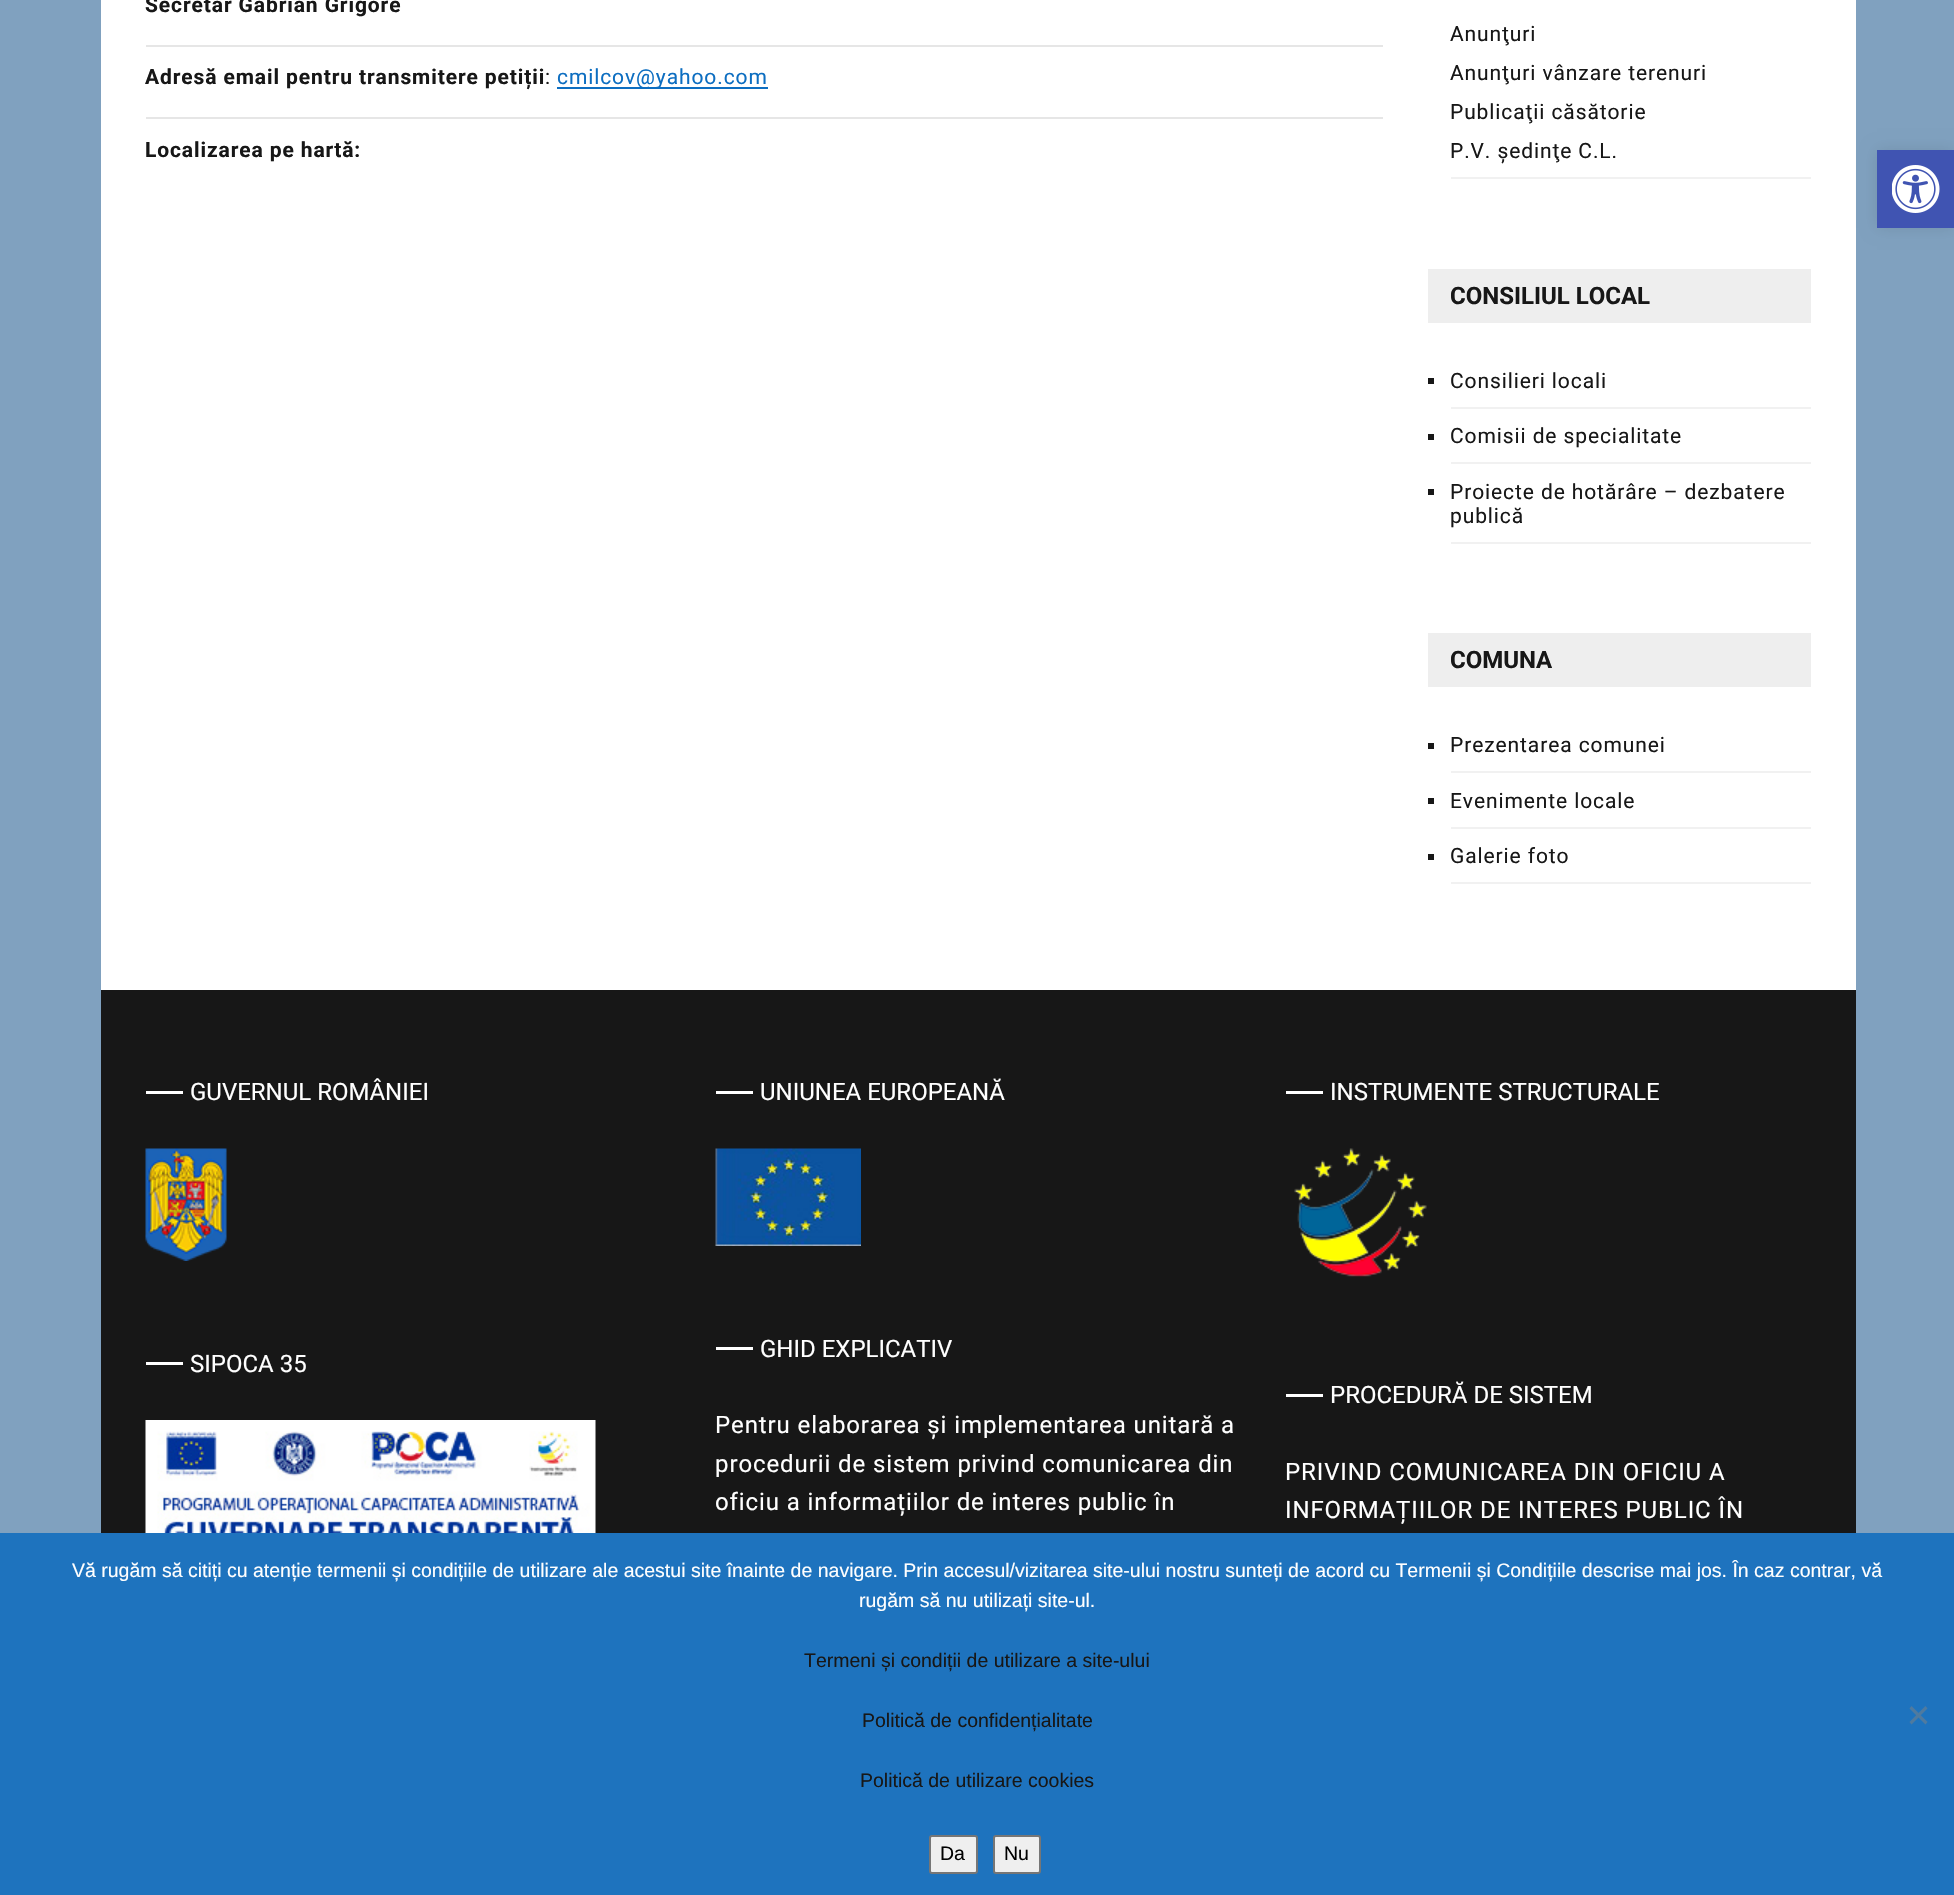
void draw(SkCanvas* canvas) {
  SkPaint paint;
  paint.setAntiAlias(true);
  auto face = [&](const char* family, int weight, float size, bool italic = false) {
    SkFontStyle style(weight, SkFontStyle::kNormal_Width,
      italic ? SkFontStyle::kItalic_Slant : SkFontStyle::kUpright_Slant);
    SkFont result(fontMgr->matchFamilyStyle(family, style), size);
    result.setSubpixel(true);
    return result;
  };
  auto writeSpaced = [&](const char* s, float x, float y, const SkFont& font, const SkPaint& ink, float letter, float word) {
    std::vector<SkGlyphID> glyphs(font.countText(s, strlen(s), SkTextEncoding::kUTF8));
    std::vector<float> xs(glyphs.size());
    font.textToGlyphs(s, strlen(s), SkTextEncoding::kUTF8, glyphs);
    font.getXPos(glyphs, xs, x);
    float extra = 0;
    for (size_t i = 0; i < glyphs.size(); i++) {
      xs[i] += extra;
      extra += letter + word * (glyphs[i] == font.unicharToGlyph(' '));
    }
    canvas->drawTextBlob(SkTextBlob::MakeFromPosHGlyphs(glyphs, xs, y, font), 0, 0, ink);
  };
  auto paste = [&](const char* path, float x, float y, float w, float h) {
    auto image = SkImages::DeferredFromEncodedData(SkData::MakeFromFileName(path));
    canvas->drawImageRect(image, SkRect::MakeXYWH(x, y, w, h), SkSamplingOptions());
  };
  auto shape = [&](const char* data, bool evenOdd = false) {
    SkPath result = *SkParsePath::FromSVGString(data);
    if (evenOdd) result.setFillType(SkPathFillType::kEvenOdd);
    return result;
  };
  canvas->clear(0xff80a1bf);
  {
    const struct { float x, y, w, h; SkColor color; } items[] = {
      {101, 0, 1755, 990, 0xffffffff},
      {146, 45, 1237, 2, 0xffe6e6e6},
      {557, 87, 211, 2, 0xff0d6ec1},
      {146, 117, 1237, 2, 0xffe6e6e6},
      {1451, 177, 360, 2, 0xfff1f1f1},
      {1428, 269, 383, 54, 0xffeeeeee},
      {1451, 407, 360, 2, 0xfff1f1f1},
      {1428, 378, 6, 6, 0xff171717},
      {1451, 462, 360, 2, 0xfff1f1f1},
      {1428, 434, 6, 6, 0xff171717},
      {1451, 542, 360, 2, 0xfff1f1f1},
      {1428, 489, 6, 6, 0xff171717},
      {1428, 633, 383, 54, 0xffeeeeee},
      {1451, 771, 360, 2, 0xfff1f1f1},
      {1428, 743, 6, 6, 0xff171717},
      {1451, 827, 360, 2, 0xfff1f1f1},
      {1428, 798, 6, 6, 0xff171717},
      {1451, 882, 360, 2, 0xfff1f1f1},
      {1428, 854, 6, 6, 0xff171717},
      {101, 990, 1755, 543, 0xff171717},
      {146, 1091, 37, 3, 0xffffffff},
    };
    for (auto [x, y, w, h, color] : items) {
      paint.setColor(color);
      canvas->drawRect(SkRect::MakeXYWH(x, y, w, h), paint);
    }
  }
  paste("img/1.png", 145, 1148, 82, 113);
  canvas->drawRect(SkRect::MakeXYWH(146, 1362, 37, 3), paint);
  paste("img/2.png", 145, 1420, 451, 113);
  canvas->drawRect(SkRect::MakeXYWH(716, 1091, 37, 3), paint);
  paste("img/3.png", 715, 1148, 146, 98);
  canvas->drawRect(SkRect::MakeXYWH(716, 1347, 37, 3), paint);
  canvas->drawRect(SkRect::MakeXYWH(1286, 1091, 37, 3), paint);
  paste("img/4.png", 1294, 1148, 133, 129);
  canvas->drawRect(SkRect::MakeXYWH(1286, 1394, 37, 3), paint);
  paint.setColor(0x1a000000);
  paint.setMaskFilter(SkMaskFilter::MakeBlur(kNormal_SkBlurStyle, 7.5f));
  canvas->drawRect(SkRect::MakeXYWH(1877, 150, 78, 78), paint);
  paint.setMaskFilter(nullptr);
  paint.setColor(0xff4054b2);
  canvas->drawRect(SkRect::MakeXYWH(1877, 150, 77, 78), paint);
  paste("img/5.png", 1892, 165, 48, 48);
  paint.setColor(0xff1e73be);
  canvas->drawRect(SkRect::MakeXYWH(0, 1533, 1954, 362), paint);
  paint.setColor(0xff4f7a9f);
  canvas->drawPath(shape("M1925.5 1706L1927.5 1708.5L1911.5 1724.5L1909.5 1722Z"), paint);
  canvas->drawPath(shape("M1909.5 1708.5L1911.5 1706L1927.5 1722L1925.5 1724.5Z"), paint);
  paint.setColor(0xffefefef);
  canvas->drawRoundRect(SkRect::MakeXYWH(930, 1836, 47, 37), 2, 2, paint);
  paint.setStroke(true);
  paint.setStrokeWidth(2);
  paint.setColor(0xff767676);
  canvas->drawRoundRect(SkRect::MakeXYWH(930, 1836, 47, 37), 2, 2, paint);
  paint.setStroke(false);
  paint.setColor(0xffefefef);
  canvas->drawRoundRect(SkRect::MakeXYWH(994, 1836, 46, 37), 2, 2, paint);
  paint.setStroke(true);
  paint.setColor(0xff767676);
  canvas->drawRoundRect(SkRect::MakeXYWH(994, 1836, 46, 37), 2, 2, paint);
  auto f0 = face("Roboto", 700, 21);
  paint.setStroke(false);
  paint.setColor(0xff171717);
  writeSpaced("Secretar Gabrian Grigore", 145, 12, f0, paint, 0.9f, 0);
  writeSpaced("Adresă email pentru transmitere petiții", 145, 84, f0, paint, 0.9f, 0);
  auto f1 = face("Roboto", 400, 21);
  writeSpaced(":", 545, 84, f1, paint, 0.9f, 0);
  paint.setColor(0xff0d6ec1);
  writeSpaced("cmilcov@yahoo.com", 557, 84, f1, paint, 0.9f, 0);
  paint.setColor(0xff171717);
  writeSpaced("Localizarea pe hartă:", 145, 157, f0, paint, 0.9f, 0);
  {
    const struct { const char* s; float x, y; } items[] = {
      {"Anunţuri", 1450, 41},
      {"Anunţuri vânzare terenuri", 1450, 80},
      {"Publicaţii căsătorie", 1450, 119},
      {"P.V. ședinţe C.L.", 1450, 158},
    };
    for (auto [s, x, y] : items) {
      writeSpaced(s, x, y, f1, paint, 0.9f, 0);
    }
  }
  auto f2 = face("Roboto", 700, 24);
  canvas->drawString("CONSILIUL LOCAL", 1450, 304, f2, paint);
  {
    const struct { const char* s; float x, y; } items[] = {
      {"Consilieri locali", 1450, 388},
      {"Comisii de specialitate", 1450, 443},
      {"Proiecte de hotărâre – dezbatere", 1450, 499},
      {"publică", 1450, 523},
    };
    for (auto [s, x, y] : items) {
      writeSpaced(s, x, y, f1, paint, 0.9f, 0);
    }
  }
  canvas->drawString("COMUNA", 1450, 668, f2, paint);
  {
    const struct { const char* s; float x, y; } items[] = {
      {"Prezentarea comunei", 1450, 752},
      {"Evenimente locale", 1450, 808},
      {"Galerie foto", 1450, 863},
    };
    for (auto [s, x, y] : items) {
      writeSpaced(s, x, y, f1, paint, 0.9f, 0);
    }
  }
  auto f3 = face("Roboto", 400, 24);
  paint.setColor(0xffffffff);
  {
    const struct { const char* s; float x, y; } items[] = {
      {"GUVERNUL ROMÂNIEI", 190, 1100},
      {"SIPOCA 35", 190, 1372},
      {"UNIUNEA EUROPEANĂ", 760, 1100},
      {"GHID EXPLICATIV", 760, 1357},
    };
    for (auto [s, x, y] : items) {
      canvas->drawString(s, x, y, f3, paint);
    }
  }
  {
    const struct { const char* s; float x, y; } items[] = {
      {"Pentru elaborarea și implementarea unitară a", 715, 1433},
      {"procedurii de sistem privind comunicarea din", 715, 1472},
      {"oficiu a informațiilor de interes public în", 715, 1510},
    };
    for (auto [s, x, y] : items) {
      writeSpaced(s, x, y, f3, paint, 0.9f, 0);
    }
  }
  canvas->drawString("INSTRUMENTE STRUCTURALE", 1330, 1100, f3, paint);
  canvas->drawString("PROCEDURĂ DE SISTEM", 1330, 1403, f3, paint);
  writeSpaced("PRIVIND COMUNICAREA DIN OFICIU A", 1285, 1480, f3, paint, 0.9f, 0);
  writeSpaced("INFORMAȚIILOR DE INTERES PUBLIC ÎN", 1285, 1518, f3, paint, 0.9f, 0);
  auto f4 = face("Liberation Sans", 400, 19.5f);
  canvas->drawString("Vă rugăm să citiți cu atenție termenii și condițiile de utilizare ale acestui site înainte de navigare. Prin accesul/vizitarea site-ului nostru sunteți de acord cu Termenii și Condițiile descrise mai jos. În caz contrar, vă", 72, 1577, f4, paint);
  canvas->drawString("rugăm să nu utilizați site-ul.", 859, 1607, f4, paint);
  paint.setColor(0xff171717);
  {
    const struct { const char* s; float x, y; } items[] = {
      {"Termeni și condiții de utilizare a site-ului", 804, 1667},
      {"Politică de confidențialitate", 862, 1727},
      {"Politică de utilizare cookies", 860, 1787},
    };
    for (auto [s, x, y] : items) {
      canvas->drawString(s, x, y, f4, paint);
    }
  }
  paint.setColor(0xff000000);
  canvas->drawString("Da", 940, 1860, f4, paint);
  canvas->drawString("Nu", 1004, 1860, f4, paint);
}
